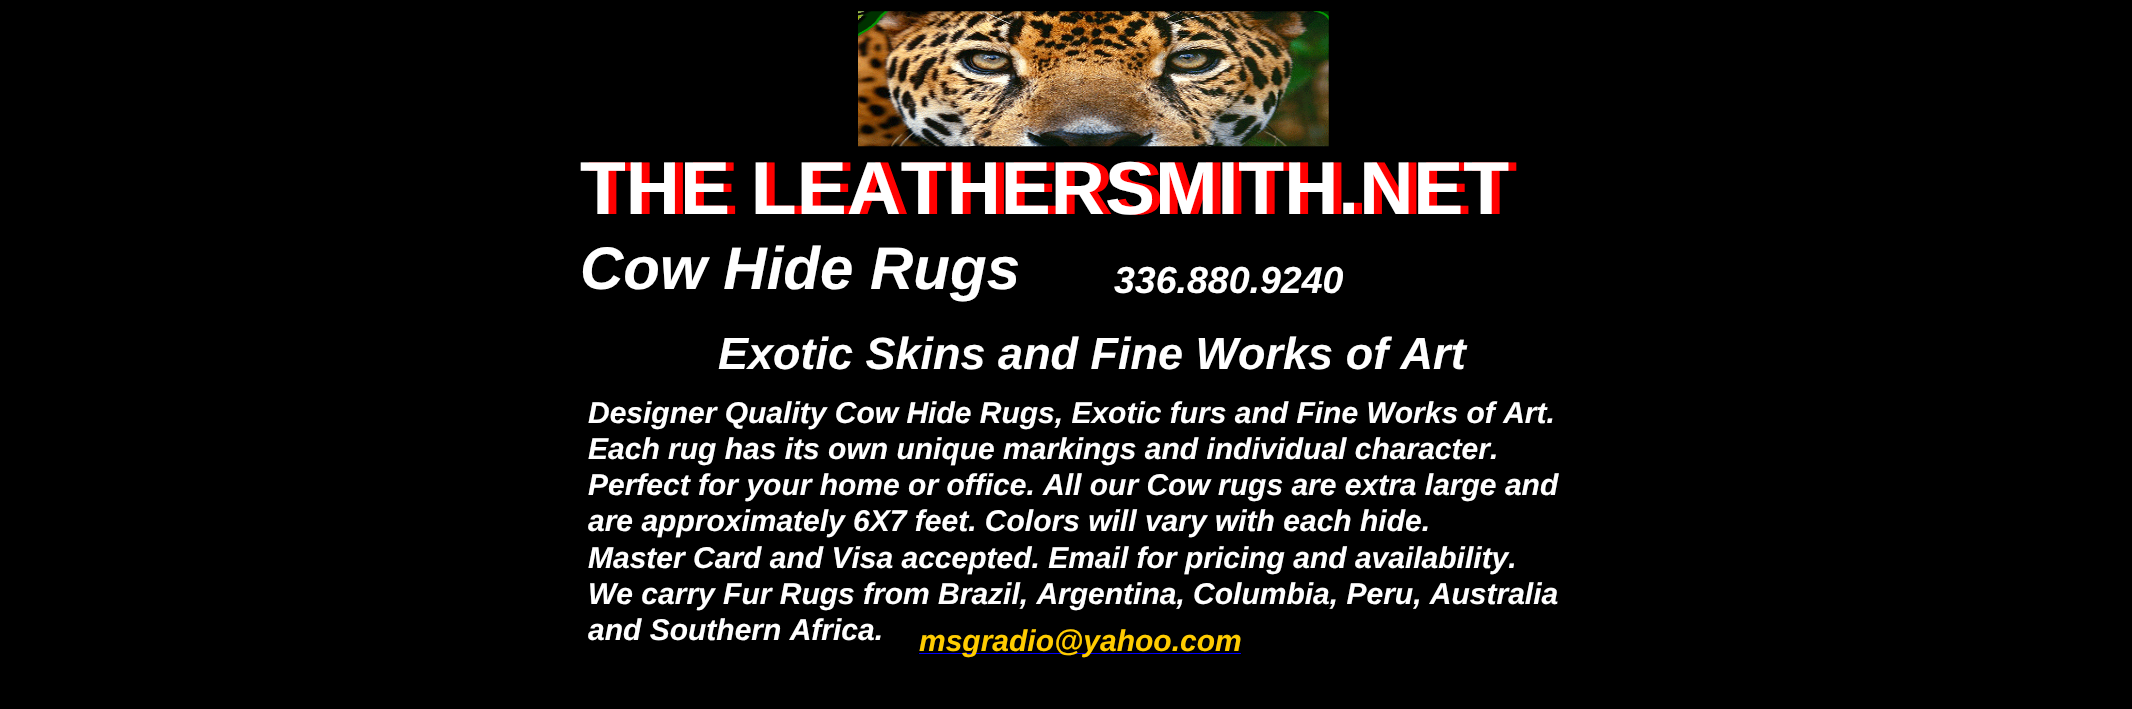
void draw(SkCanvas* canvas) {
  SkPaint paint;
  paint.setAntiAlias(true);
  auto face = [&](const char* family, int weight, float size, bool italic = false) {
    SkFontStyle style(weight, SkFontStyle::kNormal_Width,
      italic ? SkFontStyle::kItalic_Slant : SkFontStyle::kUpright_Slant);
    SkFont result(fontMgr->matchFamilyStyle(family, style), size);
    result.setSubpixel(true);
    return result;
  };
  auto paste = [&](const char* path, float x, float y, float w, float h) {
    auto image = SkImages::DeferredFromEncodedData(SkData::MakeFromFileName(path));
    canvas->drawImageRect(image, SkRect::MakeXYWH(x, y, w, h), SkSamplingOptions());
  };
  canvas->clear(0xff000000);
  paste("img/1.png", 858, 11, 471, 136);
  paint.setColor(0xff0000ff);
  canvas->drawRect(SkRect::MakeXYWH(919, 653, 322, 1), paint);
  auto f0 = face("Liberation Sans", 700, 75);
  paint.setColor(0xffff0000);
  canvas->drawString("THE LEATHERSMITH.NET", 588, 214, f0, paint);
  paint.setColor(0xffffffff);
  canvas->drawString("THE LEATHERSMITH.NET", 580, 214, f0, paint);
  auto f1 = face("Liberation Sans", 700, 60, true);
  canvas->drawString("Cow Hide Rugs", 580, 289, f1, paint);
  auto f2 = face("Liberation Sans", 700, 37.5f, true);
  canvas->drawString("336.880.9240", 1114, 293, f2, paint);
  auto f3 = face("Liberation Sans", 700, 45, true);
  canvas->drawString("Exotic Skins and Fine Works of Art", 718, 369, f3, paint);
  auto f4 = face("Liberation Sans", 700, 30, true);
  {
    const struct { const char* s; float x, y; } items[] = {
      {"Designer Quality Cow Hide Rugs, Exotic furs and Fine Works of Art.", 588, 423},
      {"Each rug has its own unique markings and individual character.", 588, 459},
      {"Perfect for your home or office. All our Cow rugs are extra large and", 588, 495},
      {"are approximately 6X7 feet. Colors will vary with each hide.", 588, 531},
      {"Master Card and Visa accepted. Email for pricing and availability.", 588, 568},
      {"We carry Fur Rugs from Brazil, Argentina, Columbia, Peru, Australia", 588, 604},
      {"and Southern Africa.", 588, 640},
    };
    for (auto [s, x, y] : items) {
      canvas->drawString(s, x, y, f4, paint);
    }
  }
  paint.setColor(0xffffcc00);
  canvas->drawString("msgradio@yahoo.com", 919, 651, f4, paint);
}
